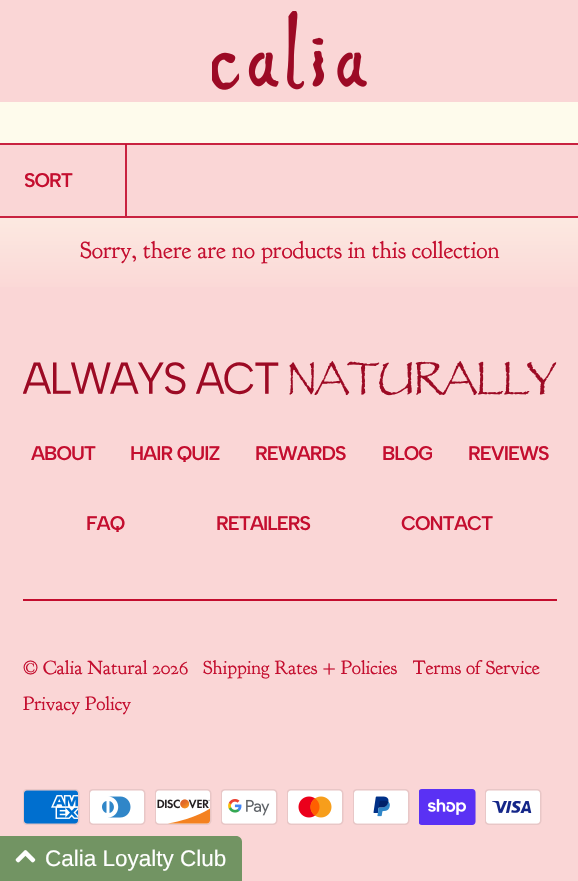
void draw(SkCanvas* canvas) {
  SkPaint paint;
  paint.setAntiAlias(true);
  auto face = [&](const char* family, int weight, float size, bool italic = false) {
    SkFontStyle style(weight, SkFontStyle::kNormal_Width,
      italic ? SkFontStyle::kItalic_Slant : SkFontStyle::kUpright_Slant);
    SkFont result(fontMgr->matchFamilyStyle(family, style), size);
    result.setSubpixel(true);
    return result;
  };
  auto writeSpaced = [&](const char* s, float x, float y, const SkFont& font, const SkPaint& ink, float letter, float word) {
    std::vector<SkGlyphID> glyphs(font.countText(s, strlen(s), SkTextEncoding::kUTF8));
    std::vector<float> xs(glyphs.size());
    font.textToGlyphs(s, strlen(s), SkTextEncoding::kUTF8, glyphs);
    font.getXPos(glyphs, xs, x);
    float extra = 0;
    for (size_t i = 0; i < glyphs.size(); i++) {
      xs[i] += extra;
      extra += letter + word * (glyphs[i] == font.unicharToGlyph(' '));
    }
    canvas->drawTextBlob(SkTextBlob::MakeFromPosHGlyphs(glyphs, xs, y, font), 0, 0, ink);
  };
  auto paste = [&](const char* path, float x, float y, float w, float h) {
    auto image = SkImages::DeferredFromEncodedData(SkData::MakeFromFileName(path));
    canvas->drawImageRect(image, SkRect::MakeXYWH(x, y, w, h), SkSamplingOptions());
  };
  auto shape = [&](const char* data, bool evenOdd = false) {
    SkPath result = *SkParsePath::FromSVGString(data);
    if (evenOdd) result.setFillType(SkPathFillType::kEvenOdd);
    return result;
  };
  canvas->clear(0xfffad6d6);
  paste("img/1.png", 212, 11, 155, 79);
  paint.setColor(0xfffefbec);
  canvas->drawRect(SkRect::MakeXYWH(0, 102, 578, 41), paint);
  {
    const SkColor colors[] = {0xfffefbec, 0xfffad4d4};
    const float stops[] = {0, 1};
    const SkPoint ends[] = {{290, 142}, {290, 306}};
    paint.setShader(SkGradientShader::MakeLinear(ends, colors, stops, 2, SkTileMode::kClamp));
    paint.setAlpha(255);
  }
  canvas->drawRect(SkRect::MakeXYWH(0, 218, 578, 69), paint);
  paint.setShader(nullptr);
  {
    const struct { float x, y, w, h; SkColor color; } items[] = {
      {125, 144, 2, 72, 0xffc92240},
      {0, 143, 578, 2, 0xffc92240},
      {125, 144, 2, 1, 0xffc51031},
      {0, 216, 578, 2, 0xffc92240},
    };
    for (auto [x, y, w, h, color] : items) {
      paint.setColor(color);
      canvas->drawRect(SkRect::MakeXYWH(x, y, w, h), paint);
    }
  }
  paste("img/2.png", 23, 361, 534, 35);
  paint.setColor(0xffc30d2e);
  canvas->drawRect(SkRect::MakeXYWH(23, 599, 534, 2), paint);
  paste("img/3.png", 23, 789, 57, 36);
  paste("img/4.png", 89, 789, 57, 36);
  paste("img/5.png", 155, 789, 57, 36);
  paste("img/6.png", 221, 789, 57, 36);
  paste("img/7.png", 287, 789, 57, 36);
  paste("img/8.png", 353, 789, 57, 36);
  paste("img/9.png", 419, 789, 57, 36);
  paste("img/10.png", 485, 789, 57, 36);
  paint.setColor(0xff729463);
  canvas->drawPath(shape("M0 836H236C239.5 836 242 838.5 242 842V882H0Z"), paint);
  paste("img/11.png", 15, 850, 21, 13);
  auto f0 = face("Albert Sans", 600, 19.75f);
  paint.setColor(0xffc40e2f);
  writeSpaced("SORT", 24, 187, f0, paint, -1, 0);
  auto f1 = face("Goudy Bookletter 1911", 400, 24);
  canvas->drawString("Sorry, there are no products in this collection", 80, 258, f1, paint);
  {
    const struct { const char* s; float x, y; } items[] = {
      {"ABOUT", 31, 460},
      {"HAIR QUIZ", 130, 460},
      {"REWARDS", 255, 460},
    };
    for (auto [s, x, y] : items) {
      writeSpaced(s, x, y, f0, paint, -1, 0);
    }
  }
  canvas->save();
  canvas->clipRect(SkRect::MakeXYWH(383, 441, 49, 24));
  writeSpaced("BLOG", 382, 460, f0, paint, -1, 0);
  canvas->restore();
  {
    const struct { const char* s; float x, y; } items[] = {
      {"REVIEWS", 468, 460},
      {"FAQ", 86, 530},
      {"RETAILERS", 216, 530},
      {"CONTACT", 401, 530},
    };
    for (auto [s, x, y] : items) {
      writeSpaced(s, x, y, f0, paint, -1, 0);
    }
  }
  auto f2 = face("Goudy Bookletter 1911", 400, 19.5f);
  canvas->drawString("© Calia Natural 2026", 23, 674, f2, paint);
  canvas->drawString("Shipping Rates + Policies", 203, 674, f2, paint);
  canvas->save();
  canvas->clipRect(SkRect::MakeXYWH(413, 656, 127, 24));
  canvas->drawString("Terms of Service", 412, 674, f2, paint);
  canvas->restore();
  canvas->drawString("Privacy Policy", 23, 710, f2, paint);
  auto f3 = face("Liberation Sans", 400, 22.5f);
  paint.setColor(0xffffffff);
  canvas->drawString("Calia Loyalty Club", 45, 866, f3, paint);
}
